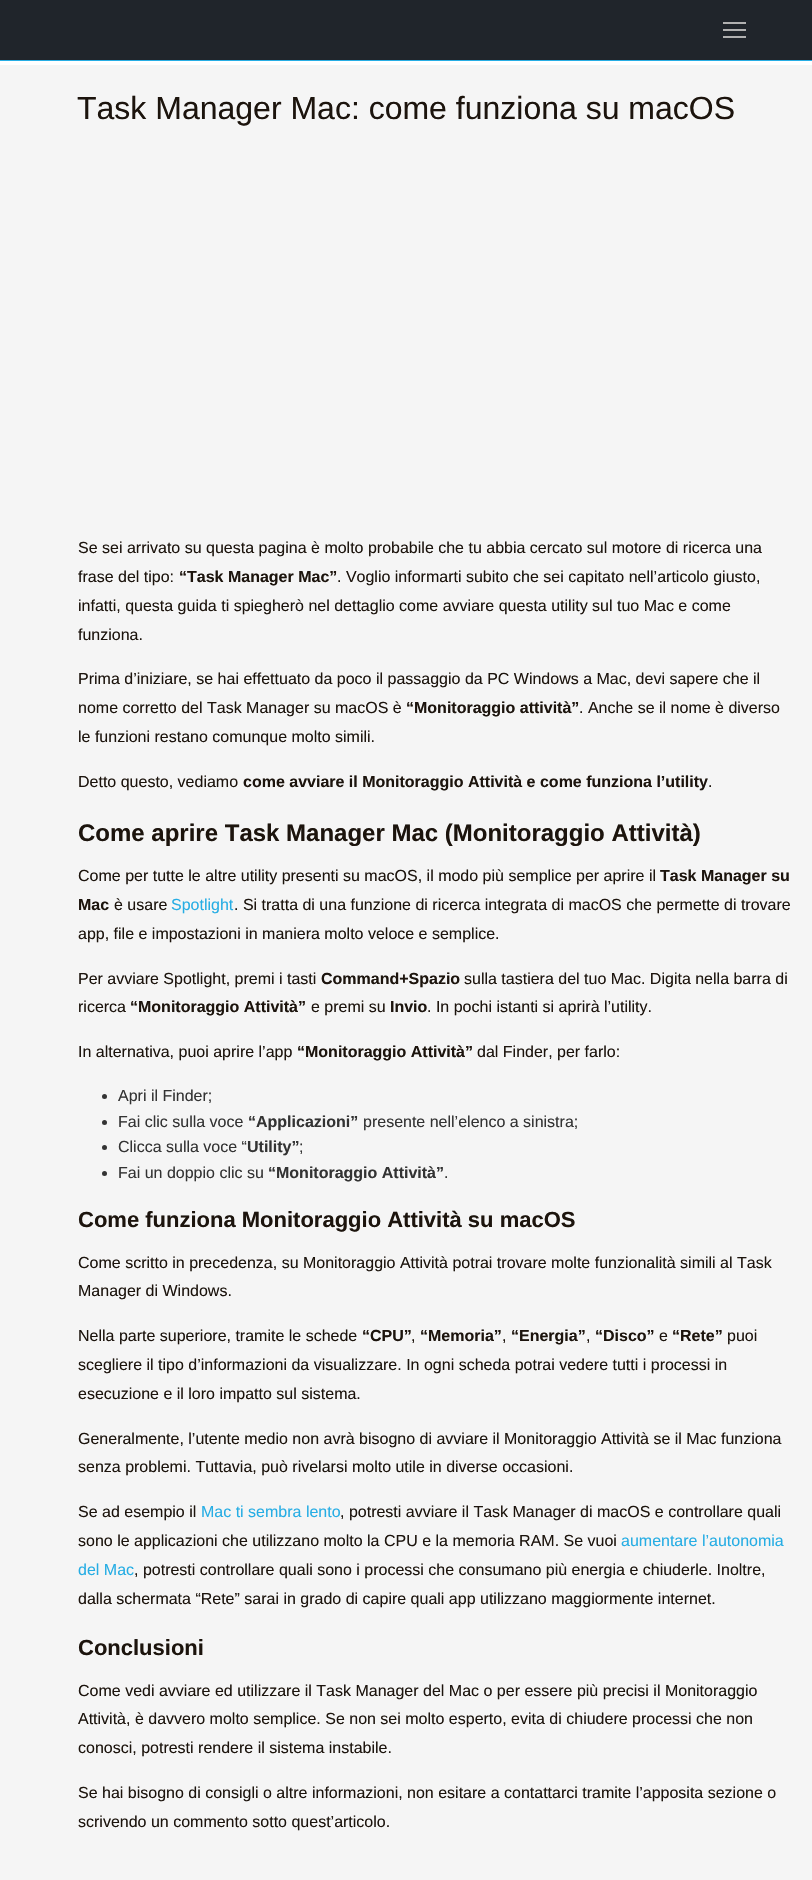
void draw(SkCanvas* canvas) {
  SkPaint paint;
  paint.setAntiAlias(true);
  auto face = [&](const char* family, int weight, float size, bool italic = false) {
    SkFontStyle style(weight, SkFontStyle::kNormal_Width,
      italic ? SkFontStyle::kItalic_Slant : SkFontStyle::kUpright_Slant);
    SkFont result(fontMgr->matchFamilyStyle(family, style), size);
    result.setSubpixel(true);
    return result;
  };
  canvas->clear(0xffffffff);
  {
    const struct { float x, y, w, h; SkColor color; } items[] = {
      {0, 65, 812, 1815, 0xfff5f5f5},
      {0, 0, 812, 60, 0xff20252b},
      {0, 60, 812, 1, 0xff26ade4},
      {723, 22, 23, 2, 0xffb1b1b1},
      {723, 29, 23, 2, 0xffb1b1b1},
      {723, 36, 23, 2, 0xffb1b1b1},
    };
    for (auto [x, y, w, h, color] : items) {
      paint.setColor(color);
      canvas->drawRect(SkRect::MakeXYWH(x, y, w, h), paint);
    }
  }
  paint.setColor(0xff333333);
  canvas->drawCircle(104.5f, 1096.5f, 2.5f, paint);
  canvas->drawCircle(104.5f, 1122.5f, 2.5f, paint);
  canvas->drawCircle(104.5f, 1147.5f, 2.5f, paint);
  canvas->drawCircle(104.5f, 1173.5f, 2.5f, paint);
  auto f0 = face("Liberation Sans", 400, 32);
  paint.setColor(0xff1c140d);
  canvas->drawString("Task Manager Mac: come funziona su macOS", 77, 119, f0, paint);
  auto f1 = face("Liberation Sans", 400, 16);
  canvas->drawString("Se sei arrivato su questa pagina è molto probabile che tu abbia cercato sul motore di ricerca una", 78, 553, f1, paint);
  canvas->drawString("frase del tipo:", 78, 582, f1, paint);
  auto f2 = face("Liberation Sans", 700, 16);
  canvas->drawString("“Task Manager Mac”", 179, 582, f2, paint);
  {
    const struct { const char* s; float x, y; } items[] = {
      {". Voglio informarti subito che sei capitato nell’articolo giusto,", 337, 582},
      {"infatti, questa guida ti spiegherò nel dettaglio come avviare questa utility sul tuo Mac e come", 78, 611},
      {"funziona.", 78, 640},
      {"Prima d’iniziare, se hai effettuato da poco il passaggio da PC Windows a Mac, devi sapere che il", 78, 684},
      {"nome corretto del Task Manager su macOS è", 78, 713},
    };
    for (auto [s, x, y] : items) {
      canvas->drawString(s, x, y, f1, paint);
    }
  }
  canvas->drawString("“Monitoraggio attività”", 406, 713, f2, paint);
  {
    const struct { const char* s; float x, y; } items[] = {
      {". Anche se il nome è diverso", 579, 713},
      {"le funzioni restano comunque molto simili.", 78, 742},
      {"Detto questo, vediamo", 78, 787},
    };
    for (auto [s, x, y] : items) {
      canvas->drawString(s, x, y, f1, paint);
    }
  }
  canvas->drawString("come avviare il Monitoraggio Attività e come funziona l’utility", 243, 787, f2, paint);
  canvas->drawString(".", 708, 787, f1, paint);
  auto f3 = face("Liberation Sans", 700, 24);
  canvas->drawString("Come aprire Task Manager Mac (Monitoraggio Attività)", 78, 841, f3, paint);
  canvas->drawString("Come per tutte le altre utility presenti su macOS, il modo più semplice per aprire il", 78, 881, f1, paint);
  canvas->drawString("Task Manager su", 660, 881, f2, paint);
  canvas->drawString("Mac", 78, 910, f2, paint);
  canvas->drawString("è usare", 114, 910, f1, paint);
  paint.setColor(0xff26ade4);
  canvas->drawString("Spotlight", 171, 910, f1, paint);
  paint.setColor(0xff1c140d);
  {
    const struct { const char* s; float x, y; } items[] = {
      {". Si tratta di una funzione di ricerca integrata di macOS che permette di trovare", 234, 910},
      {"app, file e impostazioni in maniera molto veloce e semplice.", 78, 939},
      {"Per avviare Spotlight, premi i tasti", 78, 984},
    };
    for (auto [s, x, y] : items) {
      canvas->drawString(s, x, y, f1, paint);
    }
  }
  canvas->drawString("Command+Spazio", 321, 984, f2, paint);
  canvas->drawString("sulla tastiera del tuo Mac. Digita nella barra di", 464, 984, f1, paint);
  canvas->drawString("ricerca", 78, 1012, f1, paint);
  canvas->drawString("“Monitoraggio Attività”", 130, 1012, f2, paint);
  canvas->drawString("e premi su", 311, 1012, f1, paint);
  canvas->drawString("Invio", 390, 1012, f2, paint);
  canvas->drawString(". In pochi istanti si aprirà l’utility.", 427, 1012, f1, paint);
  canvas->drawString("In alternativa, puoi aprire l’app", 78, 1057, f1, paint);
  canvas->drawString("“Monitoraggio Attività”", 297, 1057, f2, paint);
  canvas->drawString("dal Finder, per farlo:", 477, 1057, f1, paint);
  paint.setColor(0xff333333);
  canvas->drawString("Apri il Finder;", 118, 1101, f1, paint);
  canvas->drawString("Fai clic sulla voce", 118, 1127, f1, paint);
  canvas->drawString("“Applicazioni”", 248, 1127, f2, paint);
  canvas->drawString("presente nell’elenco a sinistra;", 363, 1127, f1, paint);
  canvas->drawString("Clicca sulla voce “", 118, 1152, f1, paint);
  canvas->drawString("Utility”", 247, 1152, f2, paint);
  canvas->drawString(";", 299, 1152, f1, paint);
  canvas->drawString("Fai un doppio clic su", 118, 1178, f1, paint);
  canvas->drawString("“Monitoraggio Attività”", 268, 1178, f2, paint);
  canvas->drawString(".", 444, 1178, f1, paint);
  auto f4 = face("Liberation Sans", 700, 22);
  paint.setColor(0xff1c140d);
  canvas->drawString("Come funziona Monitoraggio Attività su macOS", 78, 1227, f4, paint);
  {
    const struct { const char* s; float x, y; } items[] = {
      {"Come scritto in precedenza, su Monitoraggio Attività potrai trovare molte funzionalità simili al Task", 78, 1268},
      {"Manager di Windows.", 78, 1296},
      {"Nella parte superiore, tramite le schede", 78, 1341},
    };
    for (auto [s, x, y] : items) {
      canvas->drawString(s, x, y, f1, paint);
    }
  }
  canvas->drawString("“CPU”", 362, 1341, f2, paint);
  canvas->drawString(",", 411, 1341, f1, paint);
  canvas->drawString("“Memoria”", 420, 1341, f2, paint);
  canvas->drawString(",", 502, 1341, f1, paint);
  canvas->drawString("“Energia”", 511, 1341, f2, paint);
  canvas->drawString(",", 586, 1341, f1, paint);
  canvas->drawString("“Disco”", 595, 1341, f2, paint);
  canvas->drawString("e", 659, 1341, f1, paint);
  canvas->drawString("“Rete”", 672, 1341, f2, paint);
  {
    const struct { const char* s; float x, y; } items[] = {
      {"puoi", 727, 1341},
      {"scegliere il tipo d’informazioni da visualizzare. In ogni scheda potrai vedere tutti i processi in", 78, 1370},
      {"esecuzione e il loro impatto sul sistema.", 78, 1399},
      {"Generalmente, l’utente medio non avrà bisogno di avviare il Monitoraggio Attività se il Mac funziona", 78, 1444},
      {"senza problemi. Tuttavia, può rivelarsi molto utile in diverse occasioni.", 78, 1472},
      {"Se ad esempio il", 78, 1517},
    };
    for (auto [s, x, y] : items) {
      canvas->drawString(s, x, y, f1, paint);
    }
  }
  paint.setColor(0xff26ade4);
  canvas->drawString("Mac ti sembra lento", 201, 1517, f1, paint);
  paint.setColor(0xff1c140d);
  canvas->drawString(", potresti avviare il Task Manager di macOS e controllare quali", 340, 1517, f1, paint);
  canvas->drawString("sono le applicazioni che utilizzano molto la CPU e la memoria RAM. Se vuoi", 78, 1546, f1, paint);
  paint.setColor(0xff26ade4);
  canvas->drawString("aumentare l’autonomia", 621, 1546, f1, paint);
  canvas->drawString("del Mac", 78, 1575, f1, paint);
  paint.setColor(0xff1c140d);
  canvas->drawString(", potresti controllare quali sono i processi che consumano più energia e chiuderle. Inoltre,", 134, 1575, f1, paint);
  canvas->drawString("dalla schermata “Rete” sarai in grado di capire quali app utilizzano maggiormente internet.", 78, 1604, f1, paint);
  canvas->drawString("Conclusioni", 78, 1655, f4, paint);
  {
    const struct { const char* s; float x, y; } items[] = {
      {"Come vedi avviare ed utilizzare il Task Manager del Mac o per essere più precisi il Monitoraggio", 78, 1696},
      {"Attività, è davvero molto semplice. Se non sei molto esperto, evita di chiudere processi che non", 78, 1724},
      {"conosci, potresti rendere il sistema instabile.", 78, 1753},
      {"Se hai bisogno di consigli o altre informazioni, non esitare a contattarci tramite l’apposita sezione o", 78, 1798},
      {"scrivendo un commento sotto quest’articolo.", 78, 1827},
    };
    for (auto [s, x, y] : items) {
      canvas->drawString(s, x, y, f1, paint);
    }
  }
}
